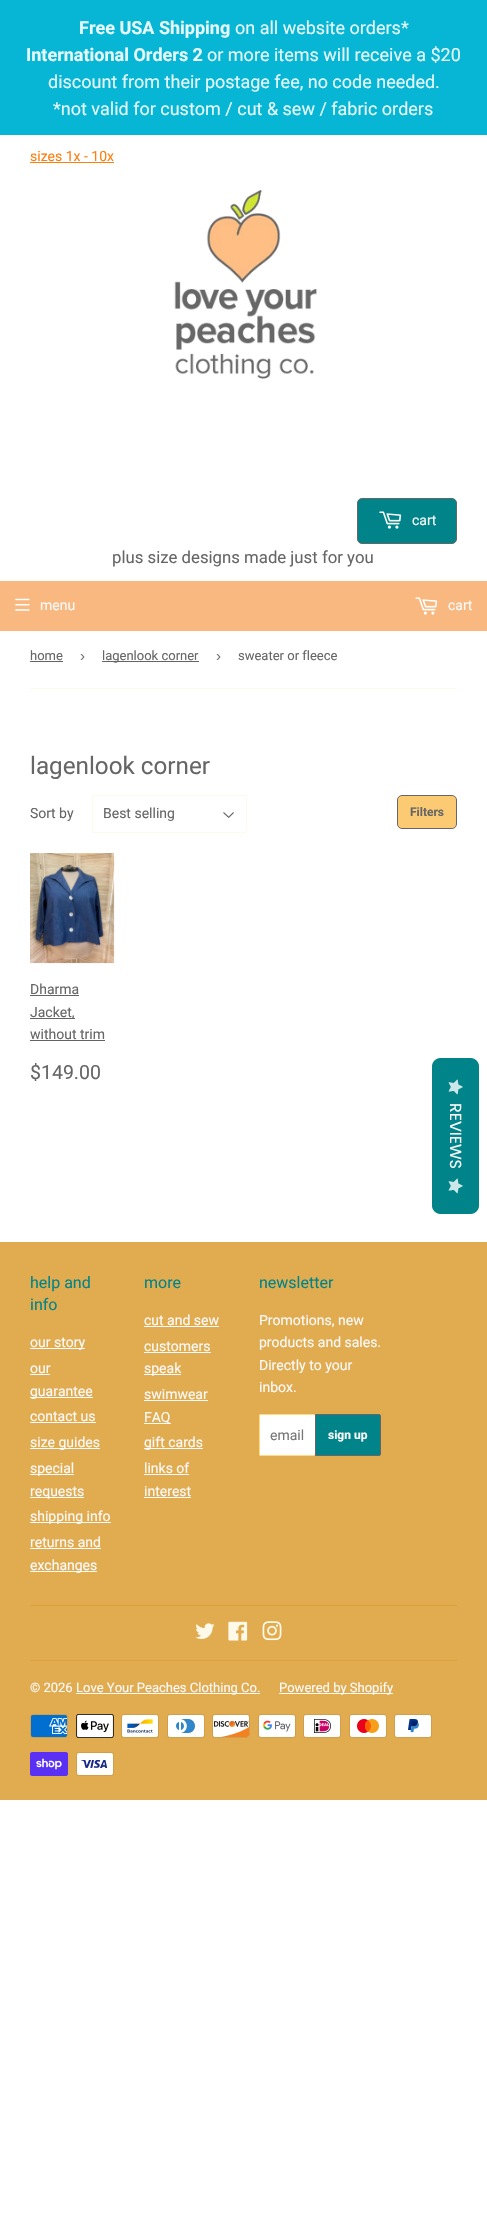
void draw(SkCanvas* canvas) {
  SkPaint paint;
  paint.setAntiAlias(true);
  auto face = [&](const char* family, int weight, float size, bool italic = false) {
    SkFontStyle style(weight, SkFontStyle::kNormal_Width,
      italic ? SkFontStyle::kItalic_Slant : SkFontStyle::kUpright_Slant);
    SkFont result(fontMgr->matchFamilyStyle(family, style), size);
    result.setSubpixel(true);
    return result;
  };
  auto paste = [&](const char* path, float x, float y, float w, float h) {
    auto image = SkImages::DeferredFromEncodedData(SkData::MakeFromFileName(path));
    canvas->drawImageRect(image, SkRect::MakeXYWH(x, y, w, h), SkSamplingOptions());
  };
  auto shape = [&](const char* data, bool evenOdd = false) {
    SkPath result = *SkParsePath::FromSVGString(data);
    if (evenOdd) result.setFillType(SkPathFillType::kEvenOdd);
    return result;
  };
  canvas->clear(0xffffffff);
  paint.setColor(0xff06b6d4);
  canvas->drawRect(SkRect::MakeXYWH(0, 0, 487, 135), paint);
  paint.setColor(0xfffd7f0f);
  canvas->drawRect(SkRect::MakeXYWH(30, 162, 84, 1), paint);
  paste("img/1.png", 174, 190, 143, 189);
  paint.setColor(0xff008489);
  canvas->drawRoundRect(SkRect::MakeXYWH(357.5f, 498.5f, 99, 45), 4.5f, 4.5f, paint);
  paint.setStroke(true);
  paint.setStrokeWidth(1);
  paint.setColor(0xff666666);
  canvas->drawRoundRect(SkRect::MakeXYWH(357.5f, 498.5f, 99, 45), 4.5f, 4.5f, paint);
  paste("img/2.png", 379, 511, 23, 18);
  paint.setStroke(false);
  paint.setColor(0xfff8b87f);
  canvas->drawRect(SkRect::MakeXYWH(0, 581, 487, 50), paint);
  paste("img/3.png", 15, 598, 15, 13);
  paste("img/4.png", 415, 597, 23, 18);
  {
    const struct { float x, y, w, h; SkColor color; } items[] = {
      {30, 688, 427, 1, 0xfffff9ea},
      {30, 661, 33, 1, 0xff676262},
      {102, 661, 97, 1, 0xff676262},
    };
    for (auto [x, y, w, h, color] : items) {
      paint.setColor(color);
      canvas->drawRect(SkRect::MakeXYWH(x, y, w, h), paint);
    }
  }
  paste("img/5.png", 223, 812, 11, 6);
  paint.setStroke(true);
  paint.setColor(0xfffff9ea);
  canvas->drawRoundRect(SkRect::MakeXYWH(92.5f, 795.5f, 154, 37), 1.5f, 1.5f, paint);
  paint.setStroke(false);
  paint.setColor(0xfffcca73);
  canvas->drawRoundRect(SkRect::MakeXYWH(397.5f, 795.5f, 59, 33), 4.5f, 4.5f, paint);
  paint.setStroke(true);
  paint.setColor(0xff666666);
  canvas->drawRoundRect(SkRect::MakeXYWH(397.5f, 795.5f, 59, 33), 4.5f, 4.5f, paint);
  paste("img/6.png", 30, 853, 85, 111);
  paint.setStroke(false);
  {
    const struct { float x, y, w, h; SkColor color; } items[] = {
      {30, 995, 49, 1, 0xff676262},
      {30, 1018, 45, 1, 0xff676262},
      {30, 1040, 75, 1, 0xff676262},
    };
    for (auto [x, y, w, h, color] : items) {
      paint.setColor(color);
      canvas->drawRect(SkRect::MakeXYWH(x, y, w, h), paint);
    }
  }
  paint.setColor(0xff008489);
  canvas->drawPath(shape("M479 1066V1206C479 1210 475 1214 471 1214H440C436 1214 432 1210 432 1206V1066C432 1062 436 1058 440 1058H471C475 1058 479 1062 479 1066Z"), paint);
  paste("img/7.png", 448, 1079, 15, 16);
  paste("img/7.png", 448, 1178, 15, 16);
  {
    const struct { float x, y, w, h; SkColor color; } items[] = {
      {0, 1242, 487, 558, 0xffe1ab50},
      {30, 1348, 55, 1, 0xfffafafa},
      {30, 1374, 20, 1, 0xfffafafa},
      {30, 1397, 63, 1, 0xfffafafa},
      {30, 1422, 66, 1, 0xfffafafa},
      {30, 1448, 70, 1, 0xfffafafa},
      {30, 1474, 44, 1, 0xfffafafa},
      {30, 1497, 54, 1, 0xfffafafa},
      {30, 1522, 81, 1, 0xfffafafa},
      {30, 1548, 71, 1, 0xfffafafa},
      {30, 1571, 67, 1, 0xfffafafa},
      {144, 1326, 75, 1, 0xfffafafa},
      {144, 1352, 67, 1, 0xfffafafa},
      {144, 1374, 37, 1, 0xfffafafa},
      {144, 1400, 64, 1, 0xfffafafa},
      {144, 1423, 27, 1, 0xfffafafa},
      {144, 1448, 59, 1, 0xfffafafa},
      {144, 1474, 45, 1, 0xfffafafa},
      {144, 1497, 47, 1, 0xfffafafa},
    };
    for (auto [x, y, w, h, color] : items) {
      paint.setColor(color);
      canvas->drawRect(SkRect::MakeXYWH(x, y, w, h), paint);
    }
  }
  paint.setColor(0xffffffff);
  canvas->drawRoundRect(SkRect::MakeXYWH(259, 1414, 56, 42), 2, 2, paint);
  {
    const struct { float x, y, w, h; SkColor color; } items[] = {
      {260, 1414, 54, 1, 0xffffdc84},
      {260, 1455, 54, 1, 0xffffdc84},
      {259, 1415, 1, 40, 0xffffdc84},
    };
    for (auto [x, y, w, h, color] : items) {
      paint.setColor(color);
      canvas->drawRect(SkRect::MakeXYWH(x, y, w, h), paint);
    }
  }
  paint.setColor(0xff008489);
  canvas->drawPath(shape("M315.5 1414.5H379C380 1414.5 380.5 1415 380.5 1416V1454C380.5 1455 380 1455.5 379 1455.5H315.5Z"), paint);
  paint.setStroke(true);
  paint.setColor(0xff666666);
  canvas->drawPath(shape("M315.5 1414.5H379C380 1414.5 380.5 1415 380.5 1416V1454C380.5 1455 380 1455.5 379 1455.5H315.5Z"), paint);
  paint.setStroke(false);
  paint.setColor(0xffdda13a);
  canvas->drawRect(SkRect::MakeXYWH(30, 1605, 427, 1), paint);
  paste("img/8.png", 195, 1623, 20, 16);
  paste("img/9.png", 228, 1621, 20, 20);
  paste("img/10.png", 262, 1621, 20, 20);
  {
    const struct { float x, y, w, h; SkColor color; } items[] = {
      {30, 1660, 427, 1, 0xffdda13a},
      {76, 1693, 184, 1, 0xfffafafa},
      {279, 1693, 114, 1, 0xfffafafa},
    };
    for (auto [x, y, w, h, color] : items) {
      paint.setColor(color);
      canvas->drawRect(SkRect::MakeXYWH(x, y, w, h), paint);
    }
  }
  paste("img/11.png", 30, 1714, 38, 24);
  paste("img/12.png", 76, 1714, 38, 24);
  paste("img/13.png", 121, 1714, 38, 24);
  paste("img/14.png", 167, 1714, 38, 24);
  paste("img/15.png", 212, 1714, 38, 24);
  paste("img/16.png", 258, 1714, 38, 24);
  paste("img/17.png", 303, 1714, 38, 24);
  paste("img/18.png", 349, 1714, 38, 24);
  paste("img/19.png", 394, 1714, 38, 24);
  paste("img/20.png", 30, 1752, 38, 24);
  paste("img/21.png", 76, 1752, 38, 24);
  auto f0 = face("Roboto", 700, 18);
  paint.setColor(0xffe6f8fb);
  canvas->drawString("Free USA Shipping", 79, 34, f0, paint);
  auto f1 = face("Roboto", 400, 18);
  canvas->drawString("on all website orders*", 235, 34, f1, paint);
  canvas->drawString("International Orders 2", 26, 61, f0, paint);
  {
    const struct { const char* s; float x, y; } items[] = {
      {"or more items will receive a $20", 207, 61},
      {"discount from their postage fee, no code needed.", 48, 88},
      {"*not valid for custom / cut & sew / fabric orders", 53, 115},
    };
    for (auto [s, x, y] : items) {
      canvas->drawString(s, x, y, f1, paint);
    }
  }
  auto f2 = face("Roboto", 400, 14);
  paint.setColor(0xfffd7f0f);
  canvas->drawString("sizes 1x - 10x", 30, 161, f2, paint);
  paint.setColor(0xfffafafa);
  canvas->drawString("cart", 412, 525, f2, paint);
  auto f3 = face("Roboto", 400, 16.75f);
  paint.setColor(0xff666666);
  canvas->drawString("plus size designs made just for you", 112, 563, f3, paint);
  paint.setColor(0xfffafafa);
  canvas->drawString("menu", 40, 610, f2, paint);
  canvas->drawString("cart", 448, 610, f2, paint);
  auto f4 = face("Roboto", 400, 13);
  paint.setColor(0xff666666);
  canvas->drawString("home", 30, 660, f4, paint);
  auto f5 = face("Liberation Sans", 400, 15);
  paint.setColor(0xff767676);
  canvas->drawString("›", 80, 661, f5, paint);
  paint.setColor(0xff666666);
  canvas->drawString("lagenlook corner", 102, 660, f4, paint);
  paint.setColor(0xff767676);
  canvas->drawString("›", 216, 661, f5, paint);
  paint.setColor(0xff666666);
  canvas->drawString("sweater or fleece", 238, 660, f4, paint);
  auto f6 = face("Roboto", 400, 24.25f);
  canvas->drawString("lagenlook corner", 30, 774, f6, paint);
  canvas->drawString("Sort by", 30, 818, f2, paint);
  canvas->drawString("Best selling", 103, 818, f2, paint);
  auto f7 = face("Roboto", 700, 12);
  canvas->drawString("Filters", 410, 816, f7, paint);
  {
    const struct { const char* s; float x, y; } items[] = {
      {"Dharma", 30, 994},
      {"Jacket,", 30, 1017},
      {"without trim", 30, 1039},
    };
    for (auto [s, x, y] : items) {
      canvas->drawString(s, x, y, f2, paint);
    }
  }
  auto f8 = face("Roboto", 400, 19.5f);
  canvas->drawString("$149.00", 30, 1079, f8, paint);
  auto f9 = face("Poppins", 400, 16);
  paint.setColor(0xfffafafa);
  canvas->save();
  canvas->rotate(90, 450, 1103);
  canvas->drawString("REVIEWS", 450, 1103, f9, paint);
  canvas->restore();
  auto f10 = face("Roboto", 400, 16);
  paint.setColor(0xff008489);
  canvas->drawString("help and", 30, 1288, f10, paint);
  canvas->drawString("info", 30, 1310, f10, paint);
  paint.setColor(0xfffafafa);
  {
    const struct { const char* s; float x, y; } items[] = {
      {"our story", 30, 1347},
      {"our", 30, 1373},
      {"guarantee", 30, 1396},
      {"contact us", 30, 1421},
      {"size guides", 30, 1447},
      {"special", 30, 1473},
      {"requests", 30, 1496},
      {"shipping info", 30, 1521},
      {"returns and", 30, 1547},
      {"exchanges", 30, 1570},
    };
    for (auto [s, x, y] : items) {
      canvas->drawString(s, x, y, f2, paint);
    }
  }
  paint.setColor(0xff008489);
  canvas->drawString("more", 144, 1288, f10, paint);
  paint.setColor(0xfffafafa);
  {
    const struct { const char* s; float x, y; } items[] = {
      {"cut and sew", 144, 1325},
      {"customers", 144, 1351},
      {"speak", 144, 1373},
      {"swimwear", 144, 1399},
      {"FAQ", 144, 1422},
      {"gift cards", 144, 1447},
      {"links of", 144, 1473},
      {"interest", 144, 1496},
    };
    for (auto [s, x, y] : items) {
      canvas->drawString(s, x, y, f2, paint);
    }
  }
  paint.setColor(0xff008489);
  canvas->drawString("newsletter", 259, 1288, f10, paint);
  paint.setColor(0xfffafafa);
  {
    const struct { const char* s; float x, y; } items[] = {
      {"Promotions, new", 259, 1325},
      {"products and sales.", 259, 1347},
      {"Directly to your", 259, 1370},
      {"inbox.", 259, 1392},
    };
    for (auto [s, x, y] : items) {
      canvas->drawString(s, x, y, f2, paint);
    }
  }
  paint.setColor(0xff767676);
  canvas->drawString("email", 270, 1440, f2, paint);
  paint.setColor(0xfffafafa);
  canvas->drawString("sign up", 328, 1439, f7, paint);
  {
    const struct { const char* s; float x, y; } items[] = {
      {"© 2026", 30, 1692},
      {"Love Your Peaches Clothing Co.", 76, 1692},
      {"Powered by Shopify", 279, 1692},
    };
    for (auto [s, x, y] : items) {
      canvas->drawString(s, x, y, f4, paint);
    }
  }
}
